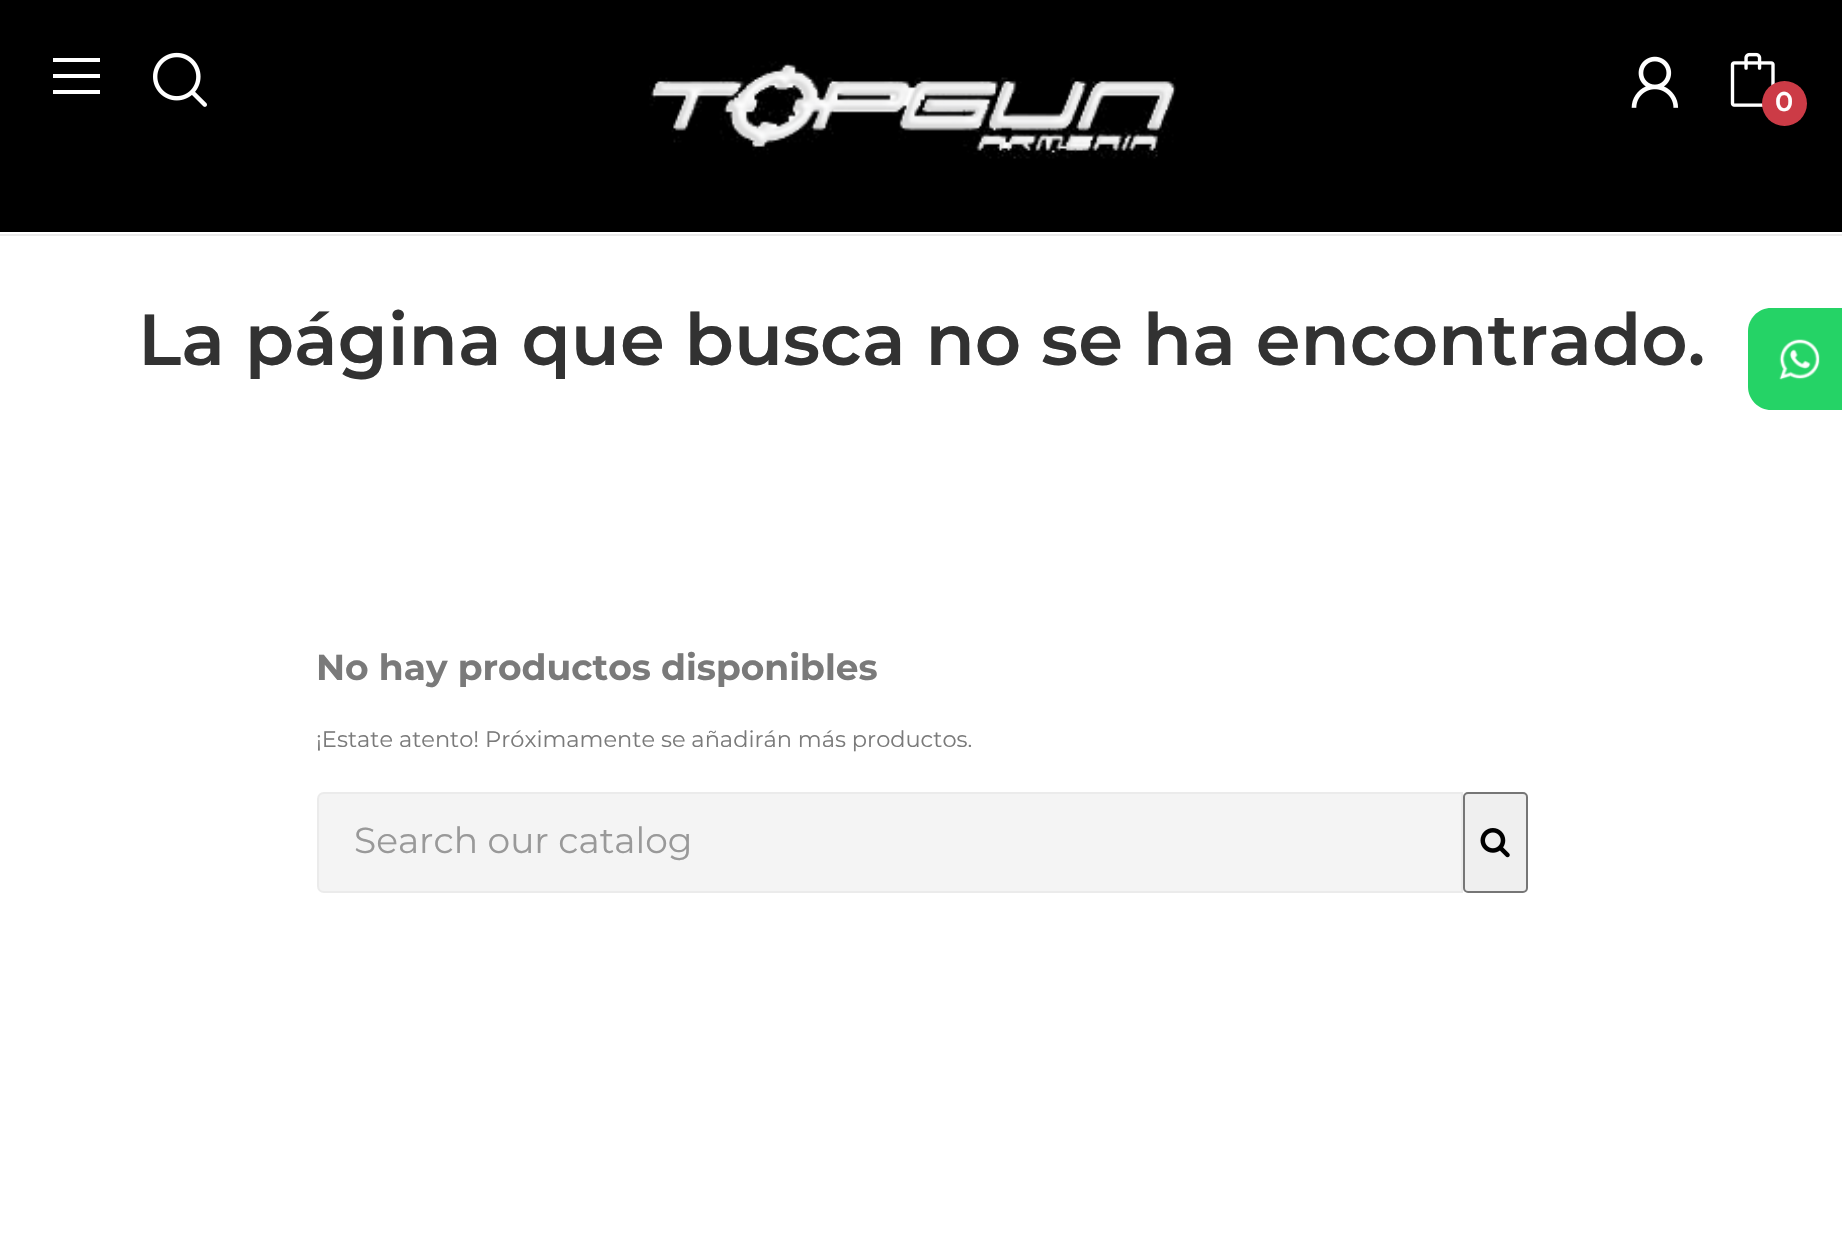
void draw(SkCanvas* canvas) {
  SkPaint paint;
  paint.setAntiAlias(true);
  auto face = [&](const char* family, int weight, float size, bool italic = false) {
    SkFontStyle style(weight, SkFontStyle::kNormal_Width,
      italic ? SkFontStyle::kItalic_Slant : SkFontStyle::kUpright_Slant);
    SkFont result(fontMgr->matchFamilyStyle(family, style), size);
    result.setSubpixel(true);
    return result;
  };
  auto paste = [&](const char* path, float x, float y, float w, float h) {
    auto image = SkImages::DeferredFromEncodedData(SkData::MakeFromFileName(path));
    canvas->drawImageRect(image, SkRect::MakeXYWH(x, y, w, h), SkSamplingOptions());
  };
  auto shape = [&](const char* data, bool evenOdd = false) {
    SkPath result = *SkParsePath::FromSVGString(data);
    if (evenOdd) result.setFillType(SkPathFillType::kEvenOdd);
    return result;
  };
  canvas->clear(0xffffffff);
  paint.setColor(0xffebebeb);
  canvas->drawRect(SkRect::MakeXYWH(0, 234, 1842, 2), paint);
  paint.setColor(0xff000000);
  canvas->drawRect(SkRect::MakeXYWH(0, 0, 1842, 232), paint);
  paint.setColor(0xffffffff);
  canvas->drawPath(shape("M53 58V62H100V58ZM53 74V78H100V74ZM53 90V94H100V90Z"), paint);
  paste("img/1.png", 153, 52, 54, 55);
  paste("img/2.png", 649, 61, 527, 98);
  paste("img/3.png", 1631, 56, 48, 52);
  paste("img/4.png", 1730, 52, 45, 55);
  paint.setColor(0xffcc3b46);
  canvas->drawCircle(1784.5f, 103.5f, 22.5f, paint);
  paint.setColor(0xfff4f4f4);
  canvas->drawPath(shape("M324 793H1462V892H324C320.5 892 318 889.5 318 886V799C318 795.5 320.5 793 324 793Z"), paint);
  paint.setStroke(true);
  paint.setStrokeWidth(2);
  paint.setColor(0xffebebeb);
  canvas->drawPath(shape("M324 793H1462V892H324C320.5 892 318 889.5 318 886V799C318 795.5 320.5 793 324 793Z"), paint);
  paint.setStroke(false);
  paint.setColor(0xffefefef);
  canvas->drawRoundRect(SkRect::MakeXYWH(1464, 793, 63, 99), 4, 4, paint);
  paint.setStroke(true);
  paint.setColor(0xff767676);
  canvas->drawRoundRect(SkRect::MakeXYWH(1464, 793, 63, 99), 4, 4, paint);
  paste("img/5.png", 1480, 828, 30, 30);
  paint.setStroke(false);
  paint.setColor(0xff25d366);
  canvas->drawPath(shape("M1771 308H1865V410H1771C1758.5 410 1748 399.5 1748 387V331C1748 318.5 1758.5 308 1771 308Z"), paint);
  paste("img/6.png", 1779, 339, 41, 41);
  auto f0 = face("Montserrat", 600, 27);
  paint.setColor(0xffffffff);
  canvas->drawString("0", 1775, 111, f0, paint);
  auto f1 = face("Montserrat", 600, 72);
  paint.setColor(0xff323232);
  canvas->drawString("La página que busca no se ha encontrado.", 138, 365, f1, paint);
  auto f2 = face("Montserrat", 700, 36);
  paint.setColor(0xff7a7a7a);
  canvas->drawString("No hay productos disponibles", 316, 680, f2, paint);
  auto f3 = face("Montserrat", 400, 22.5f);
  canvas->drawString("¡Estate atento! Próximamente se añadirán más productos.", 316, 747, f3, paint);
  auto f4 = face("Montserrat", 400, 36);
  paint.setColor(0xff999999);
  canvas->drawString("Search our catalog", 354, 853, f4, paint);
}
